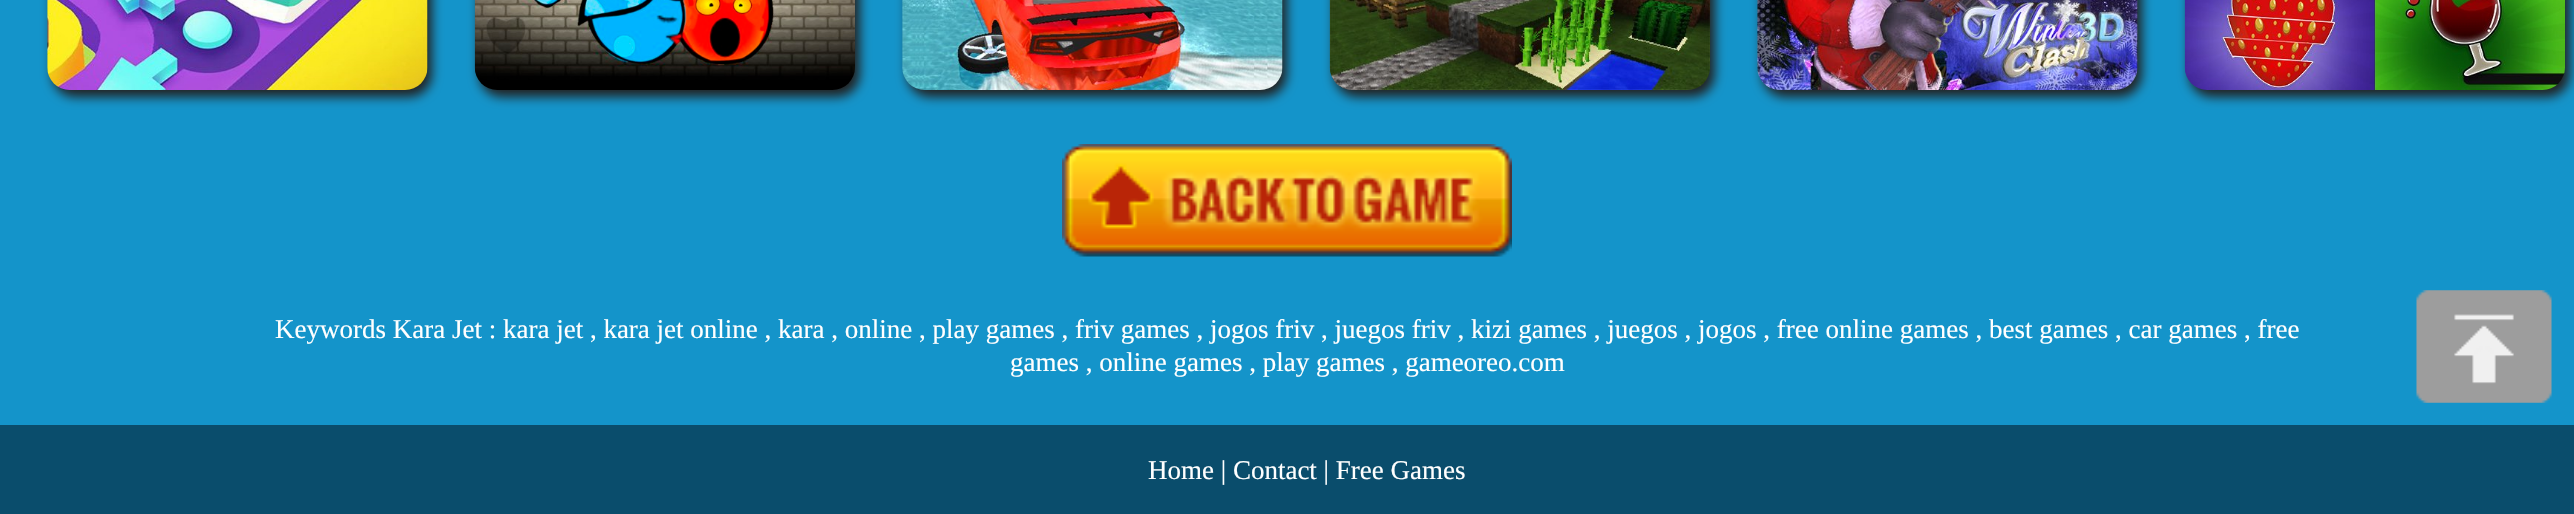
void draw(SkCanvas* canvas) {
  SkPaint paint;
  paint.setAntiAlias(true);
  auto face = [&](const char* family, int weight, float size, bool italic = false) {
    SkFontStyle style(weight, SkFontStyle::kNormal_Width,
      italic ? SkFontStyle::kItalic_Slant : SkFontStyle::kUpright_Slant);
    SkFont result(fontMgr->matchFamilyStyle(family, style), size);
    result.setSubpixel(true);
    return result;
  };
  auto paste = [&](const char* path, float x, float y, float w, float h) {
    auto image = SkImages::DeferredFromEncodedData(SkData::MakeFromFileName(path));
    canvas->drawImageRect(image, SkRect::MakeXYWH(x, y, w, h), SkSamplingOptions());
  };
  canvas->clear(0xff1494ca);
  paint.setColor(0xff222222);
  paint.setMaskFilter(SkMaskFilter::MakeBlur(kNormal_SkBlurStyle, 5.5f));
  canvas->drawRoundRect(SkRect::MakeXYWH(52, -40, 380, 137), 23, 23, paint);
  paint.setMaskFilter(nullptr);
  paste("img/1.png", 47, 0, 381, 90);
  paint.setMaskFilter(SkMaskFilter::MakeBlur(kNormal_SkBlurStyle, 5.5f));
  canvas->drawRoundRect(SkRect::MakeXYWH(479, -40, 381, 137), 23, 23, paint);
  paint.setMaskFilter(nullptr);
  paste("img/2.png", 474, 0, 381, 90);
  paint.setMaskFilter(SkMaskFilter::MakeBlur(kNormal_SkBlurStyle, 5.5f));
  canvas->drawRoundRect(SkRect::MakeXYWH(907, -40, 380, 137), 23, 23, paint);
  paint.setMaskFilter(nullptr);
  paste("img/3.png", 902, 0, 381, 90);
  paint.setMaskFilter(SkMaskFilter::MakeBlur(kNormal_SkBlurStyle, 5.5f));
  canvas->drawRoundRect(SkRect::MakeXYWH(1334, -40, 381, 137), 23, 23, paint);
  paint.setMaskFilter(nullptr);
  paste("img/4.png", 1329, 0, 381, 90);
  paint.setMaskFilter(SkMaskFilter::MakeBlur(kNormal_SkBlurStyle, 5.5f));
  canvas->drawRoundRect(SkRect::MakeXYWH(1762, -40, 380, 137), 23, 23, paint);
  paint.setMaskFilter(nullptr);
  paste("img/5.png", 1757, 0, 381, 90);
  paint.setMaskFilter(SkMaskFilter::MakeBlur(kNormal_SkBlurStyle, 5.5f));
  canvas->drawRoundRect(SkRect::MakeXYWH(2189, -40, 381, 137), 23, 23, paint);
  paint.setMaskFilter(nullptr);
  paste("img/6.png", 2184, 0, 381, 90);
  paste("img/7.png", 1062, 144, 450, 113);
  paste("img/8.png", 2416, 290, 136, 113);
  paint.setColor(0xff0a4d6c);
  canvas->drawRect(SkRect::MakeXYWH(0, 425, 2574, 89), paint);
  auto f0 = face("Liberation Serif", 400, 27);
  paint.setColor(0xffffffff);
  {
    const struct { const char* s; float x, y; } items[] = {
      {"Keywords Kara Jet : kara jet , kara jet online , kara , online , play games , friv games , jogos friv , juegos friv , kizi games , juegos , jogos , free online games , best games , car games , free", 275, 338},
      {"games , online games , play games , gameoreo.com", 1010, 371},
      {"Home | Contact | Free Games", 1148, 479},
    };
    for (auto [s, x, y] : items) {
      canvas->drawString(s, x, y, f0, paint);
    }
  }
}
